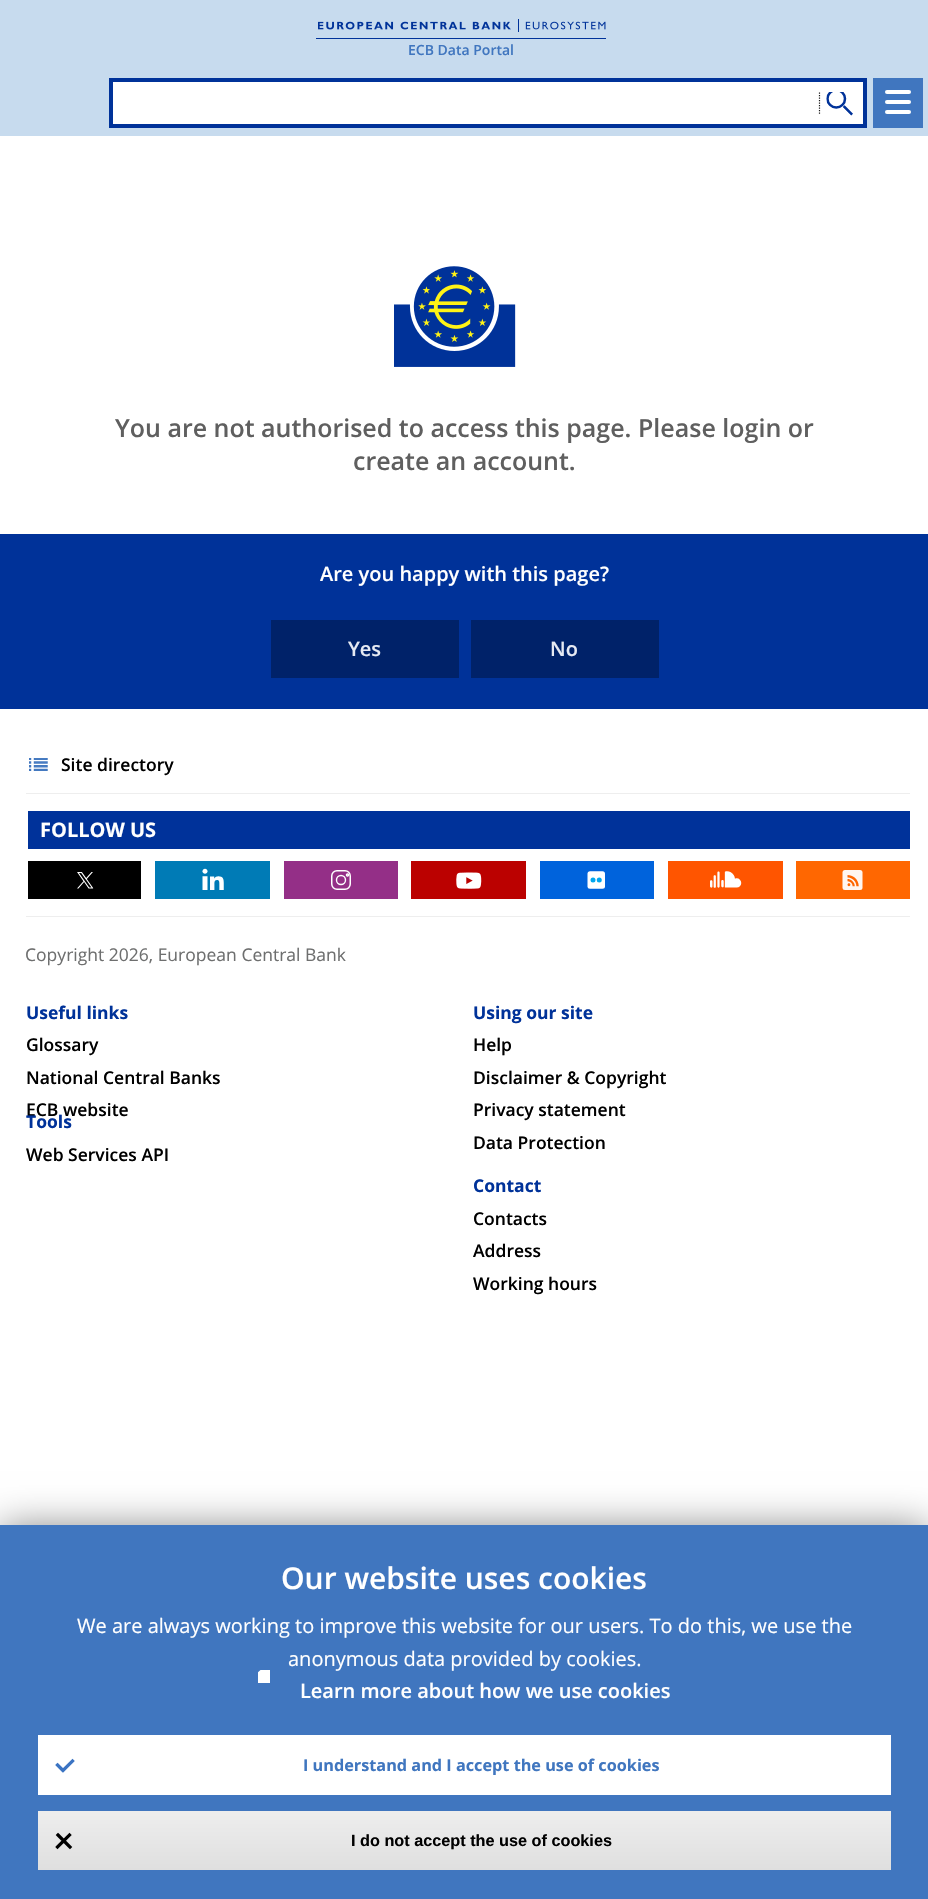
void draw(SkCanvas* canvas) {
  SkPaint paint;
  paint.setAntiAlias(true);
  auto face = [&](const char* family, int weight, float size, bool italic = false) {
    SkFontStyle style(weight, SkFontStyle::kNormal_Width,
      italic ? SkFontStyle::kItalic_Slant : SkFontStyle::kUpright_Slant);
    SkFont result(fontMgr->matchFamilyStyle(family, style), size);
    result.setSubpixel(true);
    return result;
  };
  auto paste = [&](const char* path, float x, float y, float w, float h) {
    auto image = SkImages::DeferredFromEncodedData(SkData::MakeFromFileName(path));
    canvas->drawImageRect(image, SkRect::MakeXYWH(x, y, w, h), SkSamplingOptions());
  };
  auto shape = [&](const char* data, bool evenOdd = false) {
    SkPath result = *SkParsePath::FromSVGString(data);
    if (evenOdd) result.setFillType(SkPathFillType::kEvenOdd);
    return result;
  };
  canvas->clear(0xffffffff);
  paint.setColor(0xffc7dbee);
  canvas->drawRect(SkRect::MakeXYWH(0, 0, 928, 136), paint);
  paste("img/1.png", 318, 19, 288, 13);
  {
    const struct { float x, y, w, h; SkColor color; } items[] = {
      {316, 38, 290, 1, 0xff003299},
      {113, 82, 750, 42, 0xffffffff},
      {109, 78, 757, 4, 0xff003299},
      {109, 124, 710, 4, 0xff003299},
      {109, 78, 4, 50, 0xff003299},
      {863, 78, 4, 50, 0xff003299},
      {819, 124, 47, 4, 0xff003299},
    };
    for (auto [x, y, w, h, color] : items) {
      paint.setColor(color);
      canvas->drawRect(SkRect::MakeXYWH(x, y, w, h), paint);
    }
  }
  paint.setStroke(true);
  paint.setStrokeWidth(1.2f);
  paint.setColor(0xff161616);
  paint.setPathEffect(SkDashPathEffect::Make({{1.25f, 1.25f}}, 0));
  canvas->drawPath(shape("M819.5 92.5V114"), paint);
  paint.setPathEffect(nullptr);
  paste("img/2.png", 826, 92, 27, 24);
  paint.setStroke(false);
  paint.setColor(0xff4076bf);
  canvas->drawRect(SkRect::MakeXYWH(873, 78, 50, 50), paint);
  paint.setColor(0xffffffff);
  canvas->drawRoundRect(SkRect::MakeXYWH(885, 90, 26, 4), 2, 2, paint);
  canvas->drawRoundRect(SkRect::MakeXYWH(885, 100, 26, 4), 2, 2, paint);
  canvas->drawRoundRect(SkRect::MakeXYWH(885, 110, 26, 4), 2, 2, paint);
  paste("img/3.png", 394, 266, 122, 101);
  {
    const struct { float x, y, w, h; SkColor color; } items[] = {
      {0, 534, 928, 175, 0xff003299},
      {271, 620, 188, 58, 0xff002269},
      {471, 620, 188, 58, 0xff002269},
    };
    for (auto [x, y, w, h, color] : items) {
      paint.setColor(color);
      canvas->drawRect(SkRect::MakeXYWH(x, y, w, h), paint);
    }
  }
  paste("img/4.png", 29, 758, 19, 13);
  {
    const struct { float x, y, w, h; SkColor color; } items[] = {
      {26, 793, 884, 1, 0xffeeeeee},
      {28, 811, 882, 38, 0xff00329a},
      {28, 861, 113, 38, 0xff000000},
    };
    for (auto [x, y, w, h, color] : items) {
      paint.setColor(color);
      canvas->drawRect(SkRect::MakeXYWH(x, y, w, h), paint);
    }
  }
  paste("img/5.png", 77, 872, 17, 17);
  paint.setColor(0xff007bb6);
  canvas->drawRect(SkRect::MakeXYWH(155, 861, 115, 38), paint);
  paste("img/6.png", 202, 868, 22, 22);
  paint.setColor(0xff942f87);
  canvas->drawRect(SkRect::MakeXYWH(284, 861, 114, 38), paint);
  paint.setColor(0xffd8d8d8);
  canvas->drawCircle(347.5f, 875, 1.2f, paint);
  paint.setStroke(true);
  paint.setColor(0xffffffff);
  canvas->drawCircle(347.5f, 875, 1.2f, paint);
  paint.setStrokeWidth(1.5f);
  canvas->drawRoundRect(SkRect::MakeXYWH(331.75f, 870.75f, 18.5f, 18.5f), 5.25f, 5.25f, paint);
  paint.setStrokeWidth(1.4f);
  canvas->drawCircle(341, 880, 4.5f, paint);
  paint.setStroke(false);
  paint.setColor(0xffbb0100);
  canvas->drawRect(SkRect::MakeXYWH(411, 861, 115, 38), paint);
  paste("img/7.png", 456, 872, 26, 17);
  paint.setColor(0xff0063dc);
  canvas->drawRect(SkRect::MakeXYWH(540, 861, 114, 38), paint);
  paste("img/8.png", 587, 871, 18, 18);
  paint.setColor(0xffff5500);
  canvas->drawRect(SkRect::MakeXYWH(668, 861, 115, 38), paint);
  paste("img/9.png", 710, 871, 32, 17);
  paint.setColor(0xffff6701);
  canvas->drawRect(SkRect::MakeXYWH(796, 861, 114, 38), paint);
  paste("img/10.png", 842, 870, 21, 20);
  paint.setColor(0xffeeeeee);
  canvas->drawRect(SkRect::MakeXYWH(26, 916, 884, 1), paint);
  paint.setColor(0x80000000);
  paint.setMaskFilter(SkMaskFilter::MakeBlur(kNormal_SkBlurStyle, 19));
  canvas->drawRect(SkRect::MakeXYWH(0, 1528, 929, 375), paint);
  paint.setMaskFilter(nullptr);
  paint.setColor(0xff4076bf);
  canvas->drawRect(SkRect::MakeXYWH(0, 1525, 928, 374), paint);
  paint.setColor(0xffffffff);
  canvas->drawRect(SkRect::MakeXYWH(258, 1670, 12, 13), paint);
  canvas->save();
  canvas->clipRect(SkRect::MakeXYWH(258, 1670, 12, 13));
  paint.setColor(0xff4076bf);
  canvas->drawPath(shape("M254.5 1675.5L260.5 1670L254.5 1664.5V1667L258 1670L254.5 1673.5Z"), paint);
  canvas->restore();
  paint.setColor(0xffffffff);
  canvas->drawRect(SkRect::MakeXYWH(38, 1735, 853, 60), paint);
  paint.setStroke(true);
  paint.setStrokeWidth(3.3f);
  paint.setStrokeCap(SkPaint::kSquare_Cap);
  paint.setColor(0xff3b74c3);
  canvas->drawPath(shape("M57.5 1765L63 1770.5M63 1770.5L72.5 1761"), paint);
  paint.setStroke(false);
  {
    const SkColor colors[] = {0xffededed, 0xffdfdfdf};
    const float stops[] = {0.05f, 1};
    const SkPoint ends[] = {{464, 1811}, {464, 1870}};
    paint.setShader(SkGradientShader::MakeLinear(ends, colors, stops, 2, SkTileMode::kClamp));
    paint.setAlpha(255);
  }
  canvas->drawRect(SkRect::MakeXYWH(38, 1811, 853, 59), paint);
  paint.setStroke(true);
  paint.setStrokeWidth(3.2f);
  paint.setShader(nullptr);
  paint.setColor(0xff000000);
  canvas->drawPath(shape("M70 1847L58 1835M57.5 1847L69.5 1835"), paint);
  auto f0 = face("Open Sans", 600, 14);
  paint.setStroke(false);
  paint.setColor(0xff4076bf);
  canvas->drawString("ECB Data Portal", 408, 55, f0, paint);
  auto f1 = face("Open Sans", 600, 25);
  paint.setColor(0xff5f5f5f);
  canvas->drawString("You are not authorised to access this page. Please login or", 115, 437, f1, paint);
  canvas->drawString("create an account.", 353, 470, f1, paint);
  auto f2 = face("Open Sans", 600, 20);
  paint.setColor(0xffffffff);
  canvas->drawString("Are you happy with this page?", 320, 581, f2, paint);
  paint.setColor(0xffe6eaf3);
  canvas->drawString("Yes", 348, 656, f2, paint);
  canvas->drawString("No", 550, 656, f2, paint);
  auto f3 = face("Open Sans", 600, 17.5f);
  paint.setColor(0xff000000);
  canvas->drawString("Site directory", 61, 771, f3, paint);
  auto f4 = face("Open Sans", 700, 20);
  paint.setColor(0xffffffff);
  canvas->drawString("FOLLOW US", 40, 837, f4, paint);
  auto f5 = face("Open Sans", 400, 17.5f);
  paint.setColor(0xff6e6f6f);
  canvas->drawString("Copyright 2026, European Central Bank", 25, 961, f5, paint);
  auto f6 = face("Open Sans", 700, 17.5f);
  paint.setColor(0xff003299);
  canvas->drawString("Useful links", 26, 1019, f6, paint);
  paint.setColor(0xff000000);
  {
    const struct { const char* s; float x, y; } items[] = {
      {"Glossary", 26, 1051},
      {"National Central Banks", 26, 1084},
      {"ECB website", 26, 1116},
    };
    for (auto [s, x, y] : items) {
      canvas->drawString(s, x, y, f3, paint);
    }
  }
  paint.setColor(0xff003299);
  canvas->drawString("Using our site", 473, 1019, f6, paint);
  paint.setColor(0xff000000);
  {
    const struct { const char* s; float x, y; } items[] = {
      {"Help", 473, 1051},
      {"Disclaimer & Copyright", 473, 1084},
      {"Privacy statement", 473, 1116},
      {"Data Protection", 473, 1149},
    };
    for (auto [s, x, y] : items) {
      canvas->drawString(s, x, y, f3, paint);
    }
  }
  paint.setColor(0xff003299);
  canvas->drawString("Tools", 26, 1128, f6, paint);
  paint.setColor(0xff000000);
  canvas->drawString("Web Services API", 26, 1161, f3, paint);
  paint.setColor(0xff003299);
  canvas->drawString("Contact", 473, 1192, f6, paint);
  paint.setColor(0xff000000);
  {
    const struct { const char* s; float x, y; } items[] = {
      {"Contacts", 473, 1225},
      {"Address", 473, 1257},
      {"Working hours", 473, 1290},
    };
    for (auto [s, x, y] : items) {
      canvas->drawString(s, x, y, f3, paint);
    }
  }
  auto f7 = face("Open Sans", 600, 30);
  paint.setColor(0xffffffff);
  canvas->drawString("Our website uses cookies", 281, 1589, f7, paint);
  auto f8 = face("Open Sans", 400, 20);
  canvas->drawString("We are always working to improve this website for our users. To do this, we use the", 77, 1633, f8, paint);
  canvas->drawString("anonymous data provided by cookies.", 288, 1666, f8, paint);
  canvas->drawString("Learn more about how we use cookies", 300, 1698, f2, paint);
  auto f9 = face("Open Sans", 700, 16.25f);
  paint.setColor(0xff4076bf);
  canvas->drawString("I understand and I accept the use of cookies", 303, 1771, f9, paint);
  auto f10 = face("Liberation Sans", 700, 16.25f);
  paint.setColor(0xff000000);
  canvas->drawString("I do not accept the use of cookies", 351, 1846, f10, paint);
}
